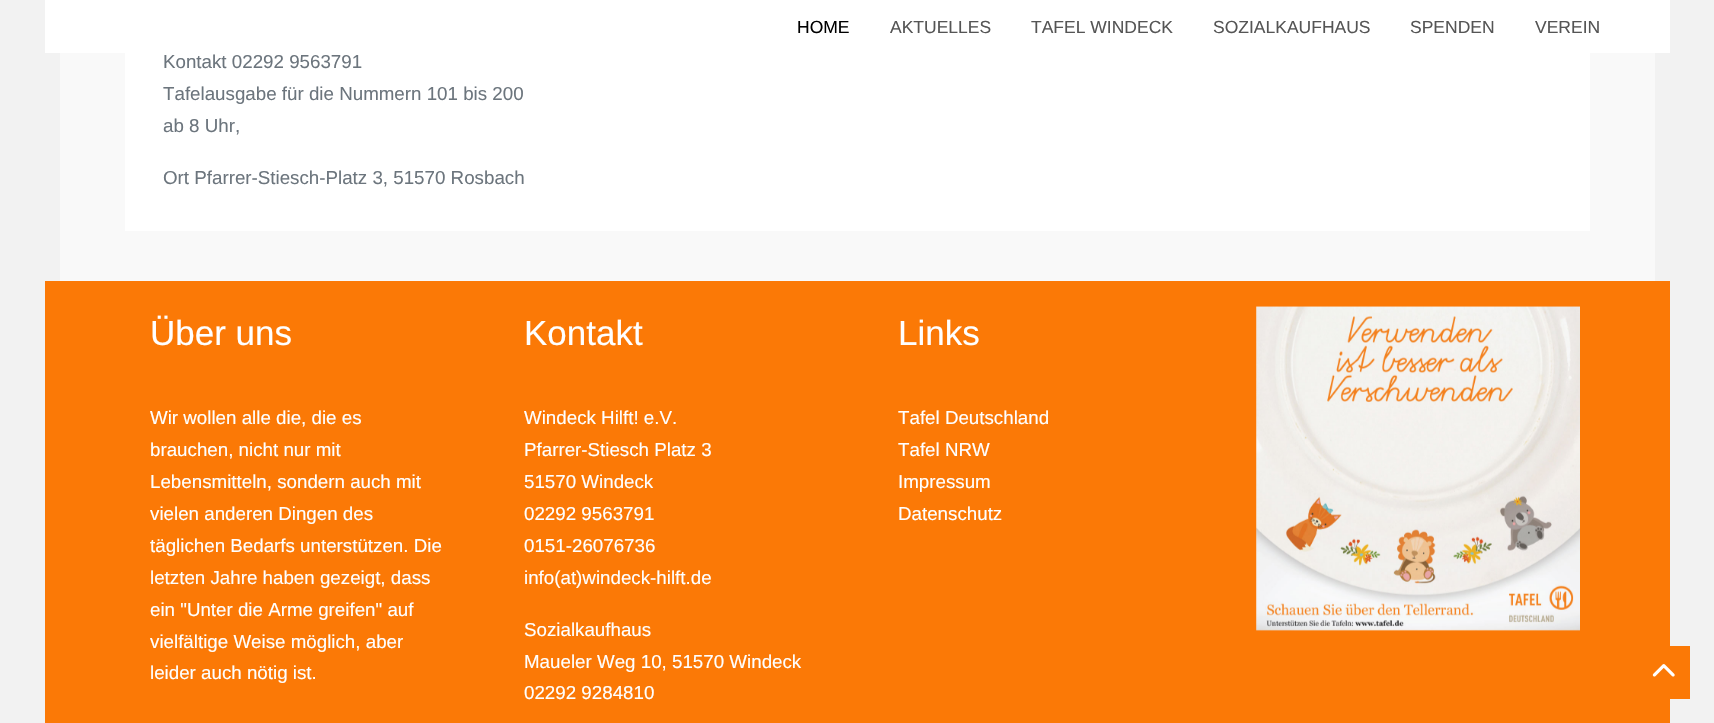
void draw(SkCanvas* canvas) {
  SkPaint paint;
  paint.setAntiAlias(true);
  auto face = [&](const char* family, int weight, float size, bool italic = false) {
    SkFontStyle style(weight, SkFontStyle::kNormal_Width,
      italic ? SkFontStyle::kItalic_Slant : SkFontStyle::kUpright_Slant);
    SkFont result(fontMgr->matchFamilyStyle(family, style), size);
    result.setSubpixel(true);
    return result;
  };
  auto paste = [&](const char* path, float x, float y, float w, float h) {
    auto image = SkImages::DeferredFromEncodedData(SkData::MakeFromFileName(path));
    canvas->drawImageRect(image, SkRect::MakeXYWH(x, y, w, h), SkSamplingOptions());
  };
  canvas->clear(0xfff2f2f2);
  {
    const struct { float x, y, w, h; SkColor color; } items[] = {
      {45, 0, 1625, 53, 0xffffffff},
      {60, 53, 1595, 228, 0xfff9f9f9},
      {125, 53, 1465, 178, 0xffffffff},
      {45, 281, 1625, 442, 0xfffb7906},
    };
    for (auto [x, y, w, h, color] : items) {
      paint.setColor(color);
      canvas->drawRect(SkRect::MakeXYWH(x, y, w, h), paint);
    }
  }
  paste("img/1.png", 1256, 306, 324, 325);
  canvas->drawRect(SkRect::MakeXYWH(1670, 646, 20, 53), paint);
  paste("img/2.png", 1652, 664, 23, 13);
  auto f0 = face("Liberation Sans", 400, 17.5f);
  paint.setColor(0xff000000);
  canvas->drawString("HOME", 797, 33, f0, paint);
  paint.setColor(0xff555555);
  {
    const struct { const char* s; float x, y; } items[] = {
      {"AKTUELLES", 890, 33},
      {"TAFEL WINDECK", 1031, 33},
      {"SOZIALKAUFHAUS", 1213, 33},
      {"SPENDEN", 1410, 33},
      {"VEREIN", 1535, 33},
    };
    for (auto [s, x, y] : items) {
      canvas->drawString(s, x, y, f0, paint);
    }
  }
  auto f1 = face("Liberation Sans", 400, 18.75f);
  paint.setColor(0xff6c757d);
  {
    const struct { const char* s; float x, y; } items[] = {
      {"Kontakt 02292 9563791", 163, 68},
      {"Tafelausgabe für die Nummern 101 bis 200", 163, 100},
      {"ab 8 Uhr,", 163, 132},
      {"Ort Pfarrer-Stiesch-Platz 3, 51570 Rosbach", 163, 184},
    };
    for (auto [s, x, y] : items) {
      canvas->drawString(s, x, y, f1, paint);
    }
  }
  auto f2 = face("Liberation Sans", 400, 35);
  paint.setColor(0xffffffff);
  canvas->drawString("Über uns", 150, 345, f2, paint);
  {
    const struct { const char* s; float x, y; } items[] = {
      {"Wir wollen alle die, die es", 150, 424},
      {"brauchen, nicht nur mit", 150, 456},
      {"Lebensmitteln, sondern auch mit", 150, 488},
      {"vielen anderen Dingen des", 150, 520},
      {"täglichen Bedarfs unterstützen. Die", 150, 552},
      {"letzten Jahre haben gezeigt, dass", 150, 584},
      {"ein \"Unter die Arme greifen\" auf", 150, 616},
      {"vielfältige Weise möglich, aber", 150, 648},
      {"leider auch nötig ist.", 150, 679},
    };
    for (auto [s, x, y] : items) {
      canvas->drawString(s, x, y, f1, paint);
    }
  }
  canvas->drawString("Kontakt", 524, 345, f2, paint);
  {
    const struct { const char* s; float x, y; } items[] = {
      {"Windeck Hilft! e.V.", 524, 424},
      {"Pfarrer-Stiesch Platz 3", 524, 456},
      {"51570 Windeck", 524, 488},
      {"02292 9563791", 524, 520},
      {"0151-26076736", 524, 552},
      {"info(at)windeck-hilft.de", 524, 584},
      {"Sozialkaufhaus", 524, 636},
      {"Maueler Weg 10, 51570 Windeck", 524, 668},
      {"02292 9284810", 524, 699},
    };
    for (auto [s, x, y] : items) {
      canvas->drawString(s, x, y, f1, paint);
    }
  }
  canvas->drawString("Links", 898, 345, f2, paint);
  {
    const struct { const char* s; float x, y; } items[] = {
      {"Tafel Deutschland", 898, 424},
      {"Tafel NRW", 898, 456},
      {"Impressum", 898, 488},
      {"Datenschutz", 898, 520},
    };
    for (auto [s, x, y] : items) {
      canvas->drawString(s, x, y, f1, paint);
    }
  }
}
